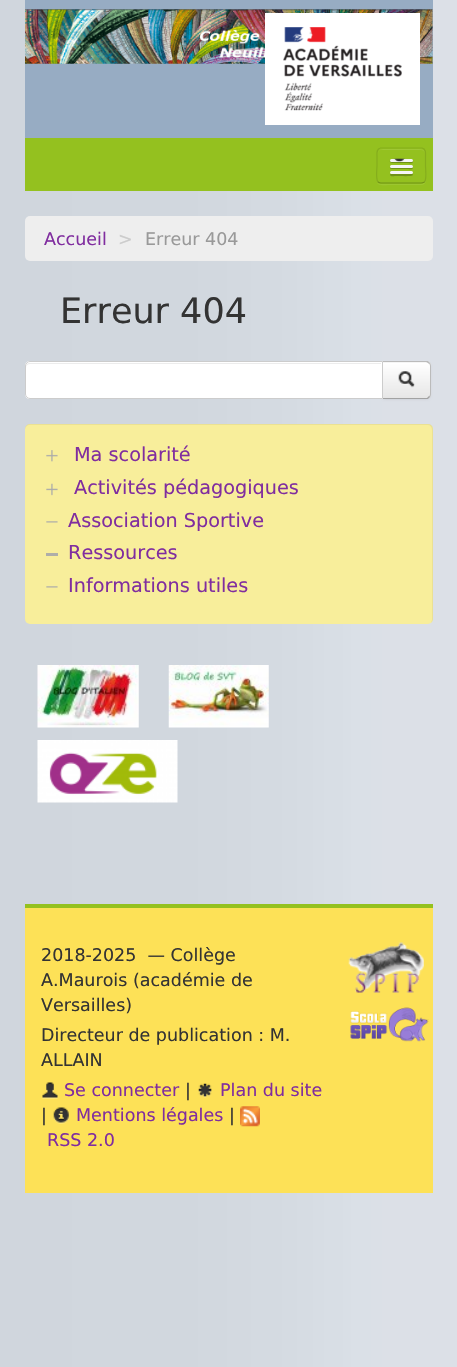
void draw(SkCanvas* canvas) {
  SkPaint paint;
  paint.setAntiAlias(true);
  auto face = [&](const char* family, int weight, float size, bool italic = false) {
    SkFontStyle style(weight, SkFontStyle::kNormal_Width,
      italic ? SkFontStyle::kItalic_Slant : SkFontStyle::kUpright_Slant);
    SkFont result(fontMgr->matchFamilyStyle(family, style), size);
    result.setSubpixel(true);
    return result;
  };
  auto paste = [&](const char* path, float x, float y, float w, float h) {
    auto image = SkImages::DeferredFromEncodedData(SkData::MakeFromFileName(path));
    canvas->drawImageRect(image, SkRect::MakeXYWH(x, y, w, h), SkSamplingOptions());
  };
  auto shape = [&](const char* data, bool evenOdd = false) {
    SkPath result = *SkParsePath::FromSVGString(data);
    if (evenOdd) result.setFillType(SkPathFillType::kEvenOdd);
    return result;
  };
  canvas->clear(0xff97acc3);
  paste("img/1.png", 0, 0, 457, 1367);
  paint.setColor(0xff97acc3);
  canvas->drawRect(SkRect::MakeXYWH(25, 0, 408, 138), paint);
  paste("img/2.png", 25, 9, 408, 55);
  paint.setColor(0xffffffff);
  canvas->drawRect(SkRect::MakeXYWH(265, 13, 155, 112), paint);
  paste("img/3.png", 283, 27, 119, 84);
  paint.setColor(0xff94c11f);
  canvas->drawRect(SkRect::MakeXYWH(25, 138, 408, 53), paint);
  paint.setColor(0xff9cc630);
  canvas->drawPath(shape("M376 152V171C376 188 377 185 394 185H421C424 185 426 183 426 180C425 182 423 184 421 184H381C378 184 376 182 376 179Z"), paint);
  paint.setColor(0xff94c11f);
  canvas->drawRoundRect(SkRect::MakeXYWH(376, 148, 50, 36), 5, 5, paint);
  paint.setColor(0xff9fc735);
  canvas->drawPath(shape("M381 150H421C423 150 425 152 425 154C425 148 419 149 414 149H388C384 149 378 148 378 154C378 152 379 150 381 150Z"), paint);
  paint.setStroke(true);
  paint.setStrokeWidth(1.2f);
  paint.setColor(0xff6f9117);
  canvas->drawPath(shape("M424.5 182C423.5 182.5 422.5 183 421 183H381C380 183 379 182.5 378 182"), paint);
  paint.setColor(0x1a000000);
  canvas->drawPath(shape("M378 182C375.5 179 377 169 377 165.5V157C377 153.5 376 149 380.5 148H422C426.5 149 425.5 153.5 425.5 157V165.5C425.5 169 427 179 424.5 182"), paint);
  paint.setStroke(false);
  paint.setColor(0xff6f9117);
  canvas->drawPath(shape("M390 160.5C388.5 163.5 394.5 163 395 163H408C409 163 412.5 164 413 162C413 161.5 413 160.5 412.5 160.5L411.5 161H391Z"), paint);
  paint.setColor(0xfff5f5f5);
  canvas->drawRoundRect(SkRect::MakeXYWH(390, 159, 23, 3), 1.5f, 1.5f, paint);
  paste("img/4.png", 393, 158, 13, 4);
  paint.setColor(0xff6f9117);
  canvas->drawPath(shape("M390 167C389 169.5 394 169 395 169H408C409 169 412.5 170 413 168C413 167.5 413 166.5 412.5 166.5C412.5 167 412 167.5 411 167.5H391C391 167.5 390.5 167 390 167Z"), paint);
  paint.setColor(0xfff5f5f5);
  canvas->drawRoundRect(SkRect::MakeXYWH(390, 165, 23, 3), 1.5f, 1.5f, paint);
  paint.setColor(0xff6f9117);
  canvas->drawPath(shape("M390.5 173.5L390 175C390.5 177 394 176 395 176H398C400 176 411.5 176.5 412.5 175.5C413 175 413 174 412.5 173L411.5 173.5C409.5 174 391 174 390.5 173.5Z"), paint);
  paint.setColor(0xfff5f5f5);
  canvas->drawRoundRect(SkRect::MakeXYWH(390, 171, 23, 3), 1.5f, 1.5f, paint);
  paint.setColor(0xffeeeeee);
  canvas->drawRoundRect(SkRect::MakeXYWH(25, 216, 408, 45), 5, 5, paint);
  paint.setColor(0x0d000000);
  paint.setMaskFilter(SkMaskFilter::MakeBlur(kNormal_SkBlurStyle, 1));
  canvas->drawRoundRect(SkRect::MakeXYWH(381, 363, 50, 37), 5, 5, paint);
  paint.setMaskFilter(nullptr);
  paint.setColor(0xfff5f5f5);
  canvas->drawPath(shape("M381 361H426C429 361 431 363 431 366V394C431 397 429 399 426 399H381Z"), paint);
  canvas->save();
  canvas->clipPath(shape("M381 361H426C429 361 431 363 431 366V394C431 397 429 399 426 399H381Z"), true);
  {
    const SkColor colors[] = {0xffffffff, 0xffe6e6e6};
    const float stops[] = {0, 1};
    const SkPoint ends[] = {{406, 363}, {406, 398}};
    paint.setShader(SkGradientShader::MakeLinear(ends, colors, stops, 2, SkTileMode::kClamp));
    paint.setAlpha(255);
  }
  canvas->drawRect(SkRect::MakeXYWH(383, 363, 48, 35), paint);
  canvas->restore();
  paint.setShader(nullptr);
  paint.setColor(0xffbbbbbb);
  canvas->drawPath(shape("M382 362L381 361H428L430 363L429 364C428 363 427 362 426 362Z"), paint);
  canvas->drawPath(shape("M430 362.5C430.5 363.5 431 364.5 431 366V394C431 395.5 430.5 396.5 430 397.5L429 396.5C429.5 396 430 395 430 394V366C430 365 429.5 364 429 363.5Z"), paint);
  paint.setColor(0xffa2a2a2);
  canvas->drawPath(shape("M430 397L428 399H381L382 398H427L429 396Z"), paint);
  paint.setColor(0xffffffff);
  canvas->drawPath(shape("M30 361H383V399H30C27 399 25 397 25 394V366C25 363 27 361 30 361Z"), paint);
  paint.setColor(0xffececec);
  canvas->drawPath(shape("M30 364H381V363H30C27 363 26 365 26 368C26 365 28 364 30 364Z"), paint);
  paint.setStroke(true);
  paint.setStrokeWidth(1);
  paint.setColor(0xffcccccc);
  canvas->drawPath(shape("M30 361.5H382.5V398.5H30C27.5 398.5 25.5 396.5 25.5 394V366C25.5 363.5 27.5 361.5 30 361.5Z"), paint);
  paste("img/5.png", 398, 371, 17, 17);
  paint.setStroke(false);
  paint.setColor(0xfff8ee9b);
  canvas->drawRoundRect(SkRect::MakeXYWH(25, 424, 408, 200), 5, 5, paint);
  paint.setColor(0x0d000000);
  canvas->drawPath(shape("M30 425H428C430 425 432 427 432 430V620L431 623C432 622 433 620 433 619V429C433 426 431 424 428 424H30C27 424 25 426 25 429V430C25 427 27 425 30 425Z"), paint);
  paste("img/6.png", 46, 450, 12, 12);
  paste("img/7.png", 46, 483, 12, 13);
  paste("img/8.png", 46, 521, 12, 2);
  paint.setColor(0xffafaea9);
  canvas->drawRect(SkRect::MakeXYWH(46, 553, 12, 3), paint);
  paste("img/8.png", 46, 586, 12, 2);
  paste("img/9.png", 37, 665, 102, 63);
  paste("img/10.png", 168, 665, 101, 63);
  paste("img/11.png", 37, 740, 141, 63);
  paint.setColor(0xfffde157);
  canvas->drawRect(SkRect::MakeXYWH(25, 908, 408, 285), paint);
  paint.setColor(0xff94c11f);
  canvas->drawRect(SkRect::MakeXYWH(25, 904, 408, 4), paint);
  paste("img/12.png", 42, 1082, 16, 17);
  paste("img/13.png", 198, 1083, 14, 15);
  paste("img/14.png", 53, 1107, 16, 17);
  paste("img/15.png", 240, 1106, 20, 21);
  paste("img/16.png", 348, 942, 76, 51);
  paste("img/17.png", 350, 1007, 79, 35);
  auto f0 = face("DejaVu Sans", 400, 17.5f);
  paint.setColor(0xff802d9f);
  canvas->drawString("Accueil", 44, 245, f0, paint);
  paint.setColor(0xffcccccc);
  canvas->drawString(">", 118, 245, f0, paint);
  paint.setColor(0xff999999);
  canvas->drawString("Erreur 404", 145, 245, f0, paint);
  auto f1 = face("DejaVu Sans", 400, 35);
  paint.setColor(0xff333333);
  canvas->drawString("Erreur 404", 60, 323, f1, paint);
  auto f2 = face("DejaVu Sans", 400, 19.25f);
  paint.setColor(0xff802d9f);
  {
    const struct { const char* s; float x, y; } items[] = {
      {"Ma scolarité", 74, 461},
      {"Activités pédagogiques", 74, 494},
      {"Association Sportive", 68, 527},
      {"Ressources", 68, 559},
      {"Informations utiles", 68, 592},
    };
    for (auto [s, x, y] : items) {
      canvas->drawString(s, x, y, f2, paint);
    }
  }
  paint.setColor(0xff333333);
  {
    const struct { const char* s; float x, y; } items[] = {
      {"2018-2025  — Collège", 41, 961},
      {"A.Maurois (académie de", 41, 986},
      {"Versailles)", 41, 1011},
      {"Directeur de publication : M.", 41, 1041},
      {"ALLAIN", 41, 1066},
    };
    for (auto [s, x, y] : items) {
      canvas->drawString(s, x, y, f0, paint);
    }
  }
  paint.setColor(0xff802d9f);
  canvas->drawString("Se connecter", 64, 1096, f0, paint);
  paint.setColor(0xff333333);
  canvas->drawString("|", 185, 1096, f0, paint);
  paint.setColor(0xff802d9f);
  canvas->drawString("Plan du site", 220, 1096, f0, paint);
  paint.setColor(0xff333333);
  canvas->drawString("|", 41, 1121, f0, paint);
  paint.setColor(0xff802d9f);
  canvas->drawString("Mentions légales", 76, 1121, f0, paint);
  paint.setColor(0xff333333);
  canvas->drawString("|", 229, 1121, f0, paint);
  paint.setColor(0xff802d9f);
  canvas->drawString("RSS 2.0", 47, 1146, f0, paint);
}
